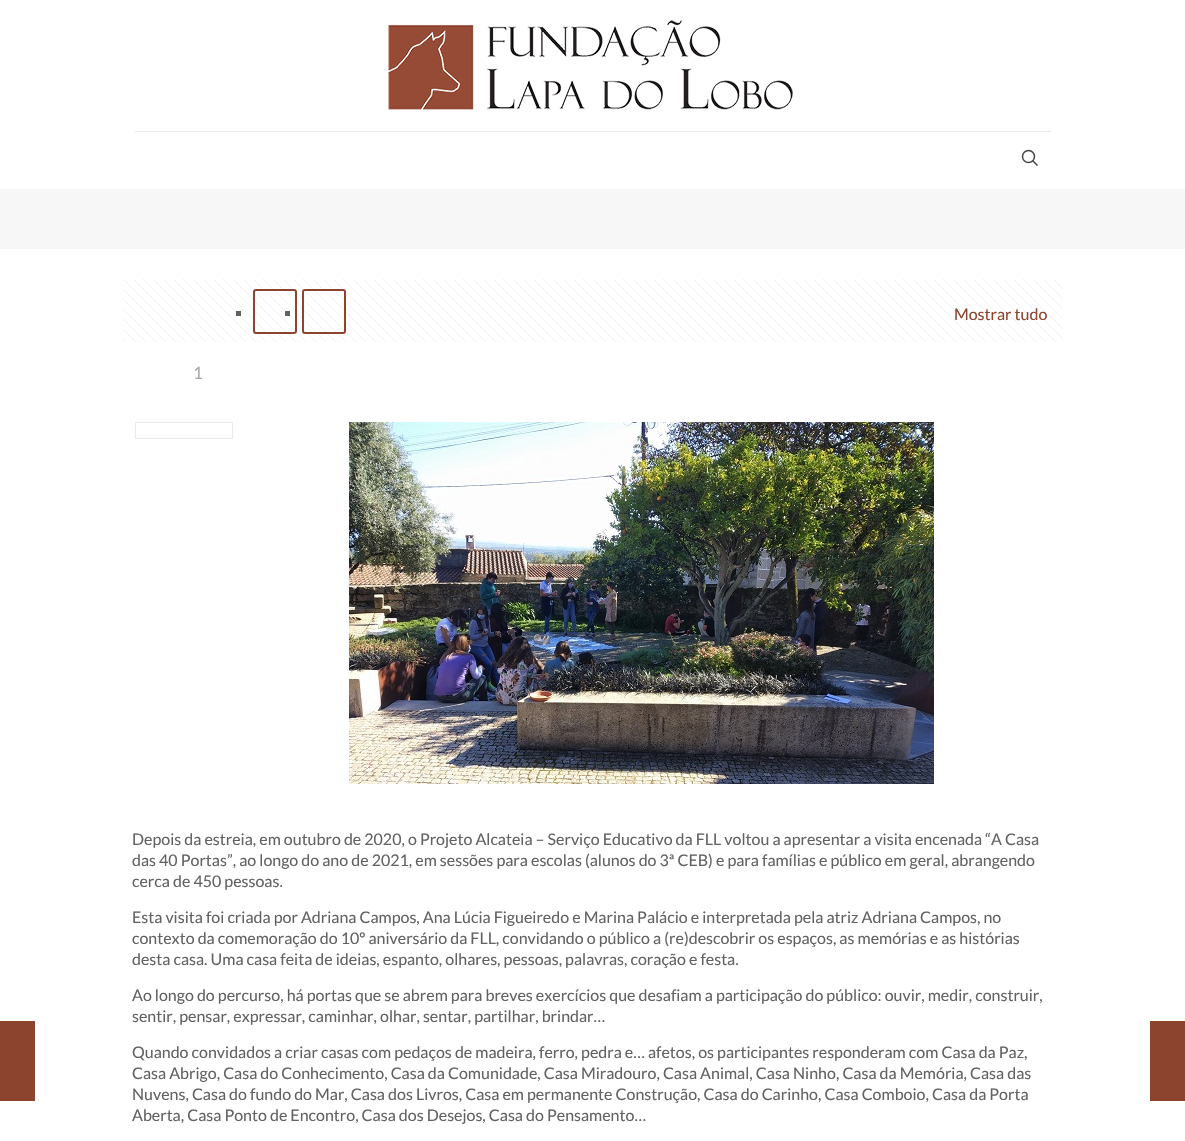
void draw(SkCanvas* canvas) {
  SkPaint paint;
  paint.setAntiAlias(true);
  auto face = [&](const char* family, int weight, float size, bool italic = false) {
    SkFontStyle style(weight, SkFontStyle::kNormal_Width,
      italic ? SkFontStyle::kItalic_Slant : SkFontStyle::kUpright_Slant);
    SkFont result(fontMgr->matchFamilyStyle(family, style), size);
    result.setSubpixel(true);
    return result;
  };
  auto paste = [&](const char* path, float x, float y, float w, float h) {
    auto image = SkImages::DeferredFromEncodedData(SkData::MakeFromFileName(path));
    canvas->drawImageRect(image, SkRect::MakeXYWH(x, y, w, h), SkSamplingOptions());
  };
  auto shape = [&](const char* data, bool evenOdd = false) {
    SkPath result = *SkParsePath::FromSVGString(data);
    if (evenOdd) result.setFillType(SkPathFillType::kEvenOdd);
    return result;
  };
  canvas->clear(0xffffffff);
  paint.setColor(0xff8c442e);
  canvas->drawRect(SkRect::MakeXYWH(0, 1021, 35, 80), paint);
  paint.setColor(0xffebebeb);
  canvas->drawRect(SkRect::MakeXYWH(135, 131, 916, 1), paint);
  paste("img/1.png", 388, 20, 405, 90);
  paint.setStroke(true);
  paint.setStrokeWidth(1.5f);
  paint.setColor(0xff444444);
  canvas->drawCircle(1028.5f, 156.5f, 6, paint);
  canvas->drawPath(shape("M1032.5 160.5L1037.5 165.5"), paint);
  paint.setStroke(false);
  paint.setColor(0xfff7f7f7);
  canvas->drawRect(SkRect::MakeXYWH(0, 189, 1185, 60), paint);
  paste("img/2.png", 123, 279, 940, 63);
  paint.setColor(0xff626262);
  canvas->drawRect(SkRect::MakeXYWH(236, 311, 5, 5), paint);
  canvas->drawRect(SkRect::MakeXYWH(285, 311, 5, 5), paint);
  paint.setStroke(true);
  paint.setStrokeWidth(2);
  paint.setColor(0xff8c442e);
  canvas->drawRoundRect(SkRect::MakeXYWH(254, 290, 42, 43), 2, 2, paint);
  canvas->drawRoundRect(SkRect::MakeXYWH(303, 290, 42, 43), 2, 2, paint);
  paint.setStrokeWidth(1);
  paint.setColor(0xffebebeb);
  canvas->drawRect(SkRect::MakeXYWH(135.5f, 422.5f, 97, 16), paint);
  paste("img/3.png", 349, 422, 585, 362);
  paint.setStroke(false);
  paint.setColor(0xff8c442e);
  canvas->drawRect(SkRect::MakeXYWH(1150, 1021, 35, 80), paint);
  auto f0 = face("Lato", 400, 16);
  canvas->drawString("Mostrar tudo", 954, 320, f0, paint);
  auto f1 = face("Lato", 400, 17);
  paint.setColor(0xffa8a8a8);
  canvas->drawString("1", 193, 379, f1, paint);
  paint.setColor(0xff626262);
  {
    const struct { const char* s; float x, y; } items[] = {
      {"Depois da estreia, em outubro de 2020, o Projeto Alcateia – Serviço Educativo da FLL voltou a apresentar a visita encenada “A Casa", 132, 845},
      {"das 40 Portas”, ao longo do ano de 2021, em sessões para escolas (alunos do 3ª CEB) e para famílias e público em geral, abrangendo", 132, 866},
      {"cerca de 450 pessoas.", 132, 887},
      {"Esta visita foi criada por Adriana Campos, Ana Lúcia Figueiredo e Marina Palácio e interpretada pela atriz Adriana Campos, no", 132, 923},
      {"contexto da comemoração do 10º aniversário da FLL, convidando o público a (re)descobrir os espaços, as memórias e as histórias", 132, 944},
      {"desta casa. Uma casa feita de ideias, espanto, olhares, pessoas, palavras, coração e festa.", 132, 965},
      {"Ao longo do percurso, há portas que se abrem para breves exercícios que desafiam a participação do público: ouvir, medir, construir,", 132, 1001},
      {"sentir, pensar, expressar, caminhar, olhar, sentar, partilhar, brindar…", 132, 1022},
      {"Quando convidados a criar casas com pedaços de madeira, ferro, pedra e… afetos, os participantes responderam com Casa da Paz,", 132, 1058},
      {"Casa Abrigo, Casa do Conhecimento, Casa da Comunidade, Casa Miradouro, Casa Animal, Casa Ninho, Casa da Memória, Casa das", 132, 1079},
      {"Nuvens, Casa do fundo do Mar, Casa dos Livros, Casa em permanente Construção, Casa do Carinho, Casa Comboio, Casa da Porta", 132, 1100},
      {"Aberta, Casa Ponto de Encontro, Casa dos Desejos, Casa do Pensamento…", 132, 1121},
    };
    for (auto [s, x, y] : items) {
      canvas->drawString(s, x, y, f0, paint);
    }
  }
}
